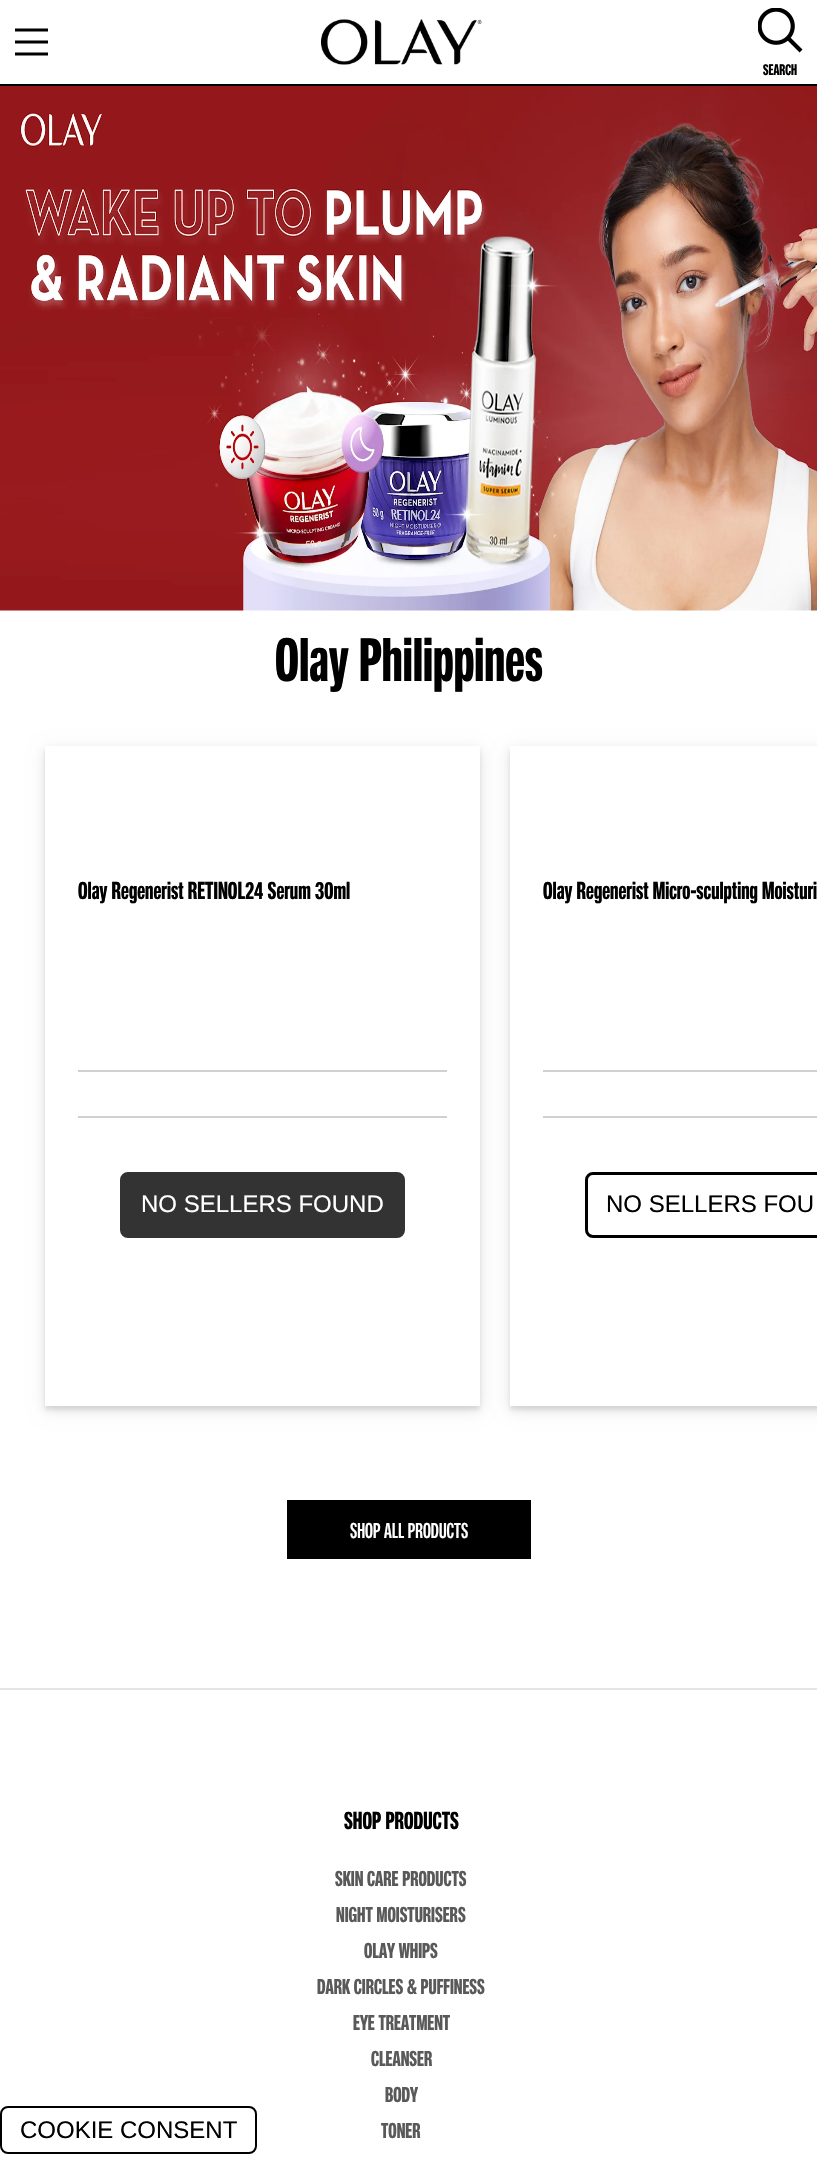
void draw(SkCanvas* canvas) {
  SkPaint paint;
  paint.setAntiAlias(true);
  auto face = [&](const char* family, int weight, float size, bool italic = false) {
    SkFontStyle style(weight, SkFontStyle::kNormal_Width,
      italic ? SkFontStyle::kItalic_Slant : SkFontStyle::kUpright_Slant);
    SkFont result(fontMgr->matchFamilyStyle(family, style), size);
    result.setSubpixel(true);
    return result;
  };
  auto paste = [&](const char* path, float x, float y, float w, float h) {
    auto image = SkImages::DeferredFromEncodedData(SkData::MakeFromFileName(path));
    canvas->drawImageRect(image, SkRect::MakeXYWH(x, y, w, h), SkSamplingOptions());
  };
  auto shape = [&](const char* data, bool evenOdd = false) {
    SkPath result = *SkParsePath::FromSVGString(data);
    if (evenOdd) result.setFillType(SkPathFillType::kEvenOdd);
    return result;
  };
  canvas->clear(0xffffffff);
  paint.setColor(0xff000000);
  canvas->drawRect(SkRect::MakeXYWH(0, 84, 817, 2), paint);
  canvas->drawPath(shape("M15 55.5V52.5H48V55.5ZM15 43.5V40.5H48V43.5ZM15 31.5V28.5H48V31.5Z"), paint);
  paste("img/1.png", 321, 19, 161, 46);
  paste("img/2.png", 758, 8, 45, 45);
  paste("img/3.png", 0, 86, 817, 525);
  canvas->save();
  canvas->clipPath(shape("M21 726H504V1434H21ZM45 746H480V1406H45Z", true), true);
  paint.setColor(0x1a000000);
  paint.setMaskFilter(SkMaskFilter::MakeBlur(kNormal_SkBlurStyle, 7.5f));
  canvas->drawRect(SkRect::MakeXYWH(45, 750, 435, 660), paint);
  paint.setMaskFilter(nullptr);
  canvas->restore();
  canvas->save();
  canvas->clipPath(shape("M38 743H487V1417H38ZM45 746H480V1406H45Z", true), true);
  paint.setMaskFilter(SkMaskFilter::MakeBlur(kNormal_SkBlurStyle, 2));
  canvas->drawRect(SkRect::MakeXYWH(45, 750, 435, 660), paint);
  paint.setMaskFilter(nullptr);
  canvas->restore();
  paint.setColor(0xffd0d0d0);
  canvas->drawRect(SkRect::MakeXYWH(78, 1070, 369, 2), paint);
  canvas->drawRect(SkRect::MakeXYWH(78, 1116, 369, 2), paint);
  paint.setColor(0xff333333);
  canvas->drawRoundRect(SkRect::MakeXYWH(121.5f, 1173.5f, 282, 63), 6.5f, 6.5f, paint);
  paint.setStroke(true);
  paint.setStrokeWidth(3);
  canvas->drawRoundRect(SkRect::MakeXYWH(121.5f, 1173.5f, 282, 63), 6.5f, 6.5f, paint);
  canvas->save();
  canvas->clipPath(shape("M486 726H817V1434H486ZM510 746H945V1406H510Z", true), true);
  paint.setStroke(false);
  paint.setColor(0x1a000000);
  paint.setMaskFilter(SkMaskFilter::MakeBlur(kNormal_SkBlurStyle, 7.5f));
  canvas->drawRect(SkRect::MakeXYWH(510, 750, 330, 660), paint);
  paint.setMaskFilter(nullptr);
  canvas->restore();
  canvas->save();
  canvas->clipPath(shape("M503 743H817V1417H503ZM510 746H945V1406H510Z", true), true);
  paint.setMaskFilter(SkMaskFilter::MakeBlur(kNormal_SkBlurStyle, 2));
  canvas->drawRect(SkRect::MakeXYWH(510, 750, 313, 660), paint);
  paint.setMaskFilter(nullptr);
  canvas->restore();
  paint.setColor(0xffd0d0d0);
  canvas->drawRect(SkRect::MakeXYWH(543, 1070, 274, 2), paint);
  canvas->drawRect(SkRect::MakeXYWH(543, 1116, 274, 2), paint);
  paint.setStroke(true);
  paint.setColor(0xff000000);
  canvas->drawRoundRect(SkRect::MakeXYWH(586.5f, 1173.5f, 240, 63), 6.5f, 6.5f, paint);
  paint.setStroke(false);
  canvas->drawRect(SkRect::MakeXYWH(287, 1500, 244, 59), paint);
  paint.setColor(0xffe5e5e5);
  canvas->drawRect(SkRect::MakeXYWH(0, 1688, 817, 2), paint);
  paint.setStroke(true);
  paint.setStrokeWidth(2);
  paint.setColor(0xff000000);
  canvas->drawRoundRect(SkRect::MakeXYWH(1, 2107, 255, 46), 7, 7, paint);
  auto f0 = face("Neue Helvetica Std", 700, 15);
  paint.setStroke(false);
  canvas->drawString("SEARCH", 763, 75, f0, paint);
  auto f1 = face("Neue Helvetica Std", 700, 60);
  canvas->drawString("Olay Philippines", 275, 681, f1, paint);
  auto f2 = face("Neue Helvetica Std", 700, 24);
  canvas->drawString("Olay Regenerist RETINOL24 Serum 30ml", 78, 899, f2, paint);
  auto f3 = face("Liberation Sans", 400, 24);
  paint.setColor(0xffffffff);
  canvas->drawString("NO SELLERS FOUND", 141, 1212, f3, paint);
  paint.setColor(0xff000000);
  canvas->drawString("Olay Regenerist Micro-sculpting Moisturi", 543, 899, f2, paint);
  canvas->drawString("NO SELLERS FOU", 606, 1212, f3, paint);
  auto f4 = face("Neue Helvetica Std", 500, 21);
  paint.setColor(0xffffffff);
  canvas->drawString("SHOP ALL PRODUCTS", 350, 1538, f4, paint);
  paint.setColor(0xff000000);
  canvas->drawString("COOKIE CONSENT", 20, 2138, f3, paint);
  canvas->drawString("SHOP PRODUCTS", 344, 1829, f2, paint);
  auto f5 = face("Neue Helvetica Std", 700, 21);
  paint.setColor(0xff595959);
  {
    const struct { const char* s; float x, y; } items[] = {
      {"SKIN CARE PRODUCTS", 335, 1886},
      {"NIGHT MOISTURISERS", 336, 1922},
      {"OLAY WHIPS", 364, 1958},
      {"DARK CIRCLES & PUFFINESS", 317, 1994},
      {"EYE TREATMENT", 353, 2030},
      {"CLEANSER", 371, 2066},
      {"BODY", 385, 2102},
      {"TONER", 381, 2138},
    };
    for (auto [s, x, y] : items) {
      canvas->drawString(s, x, y, f5, paint);
    }
  }
}
